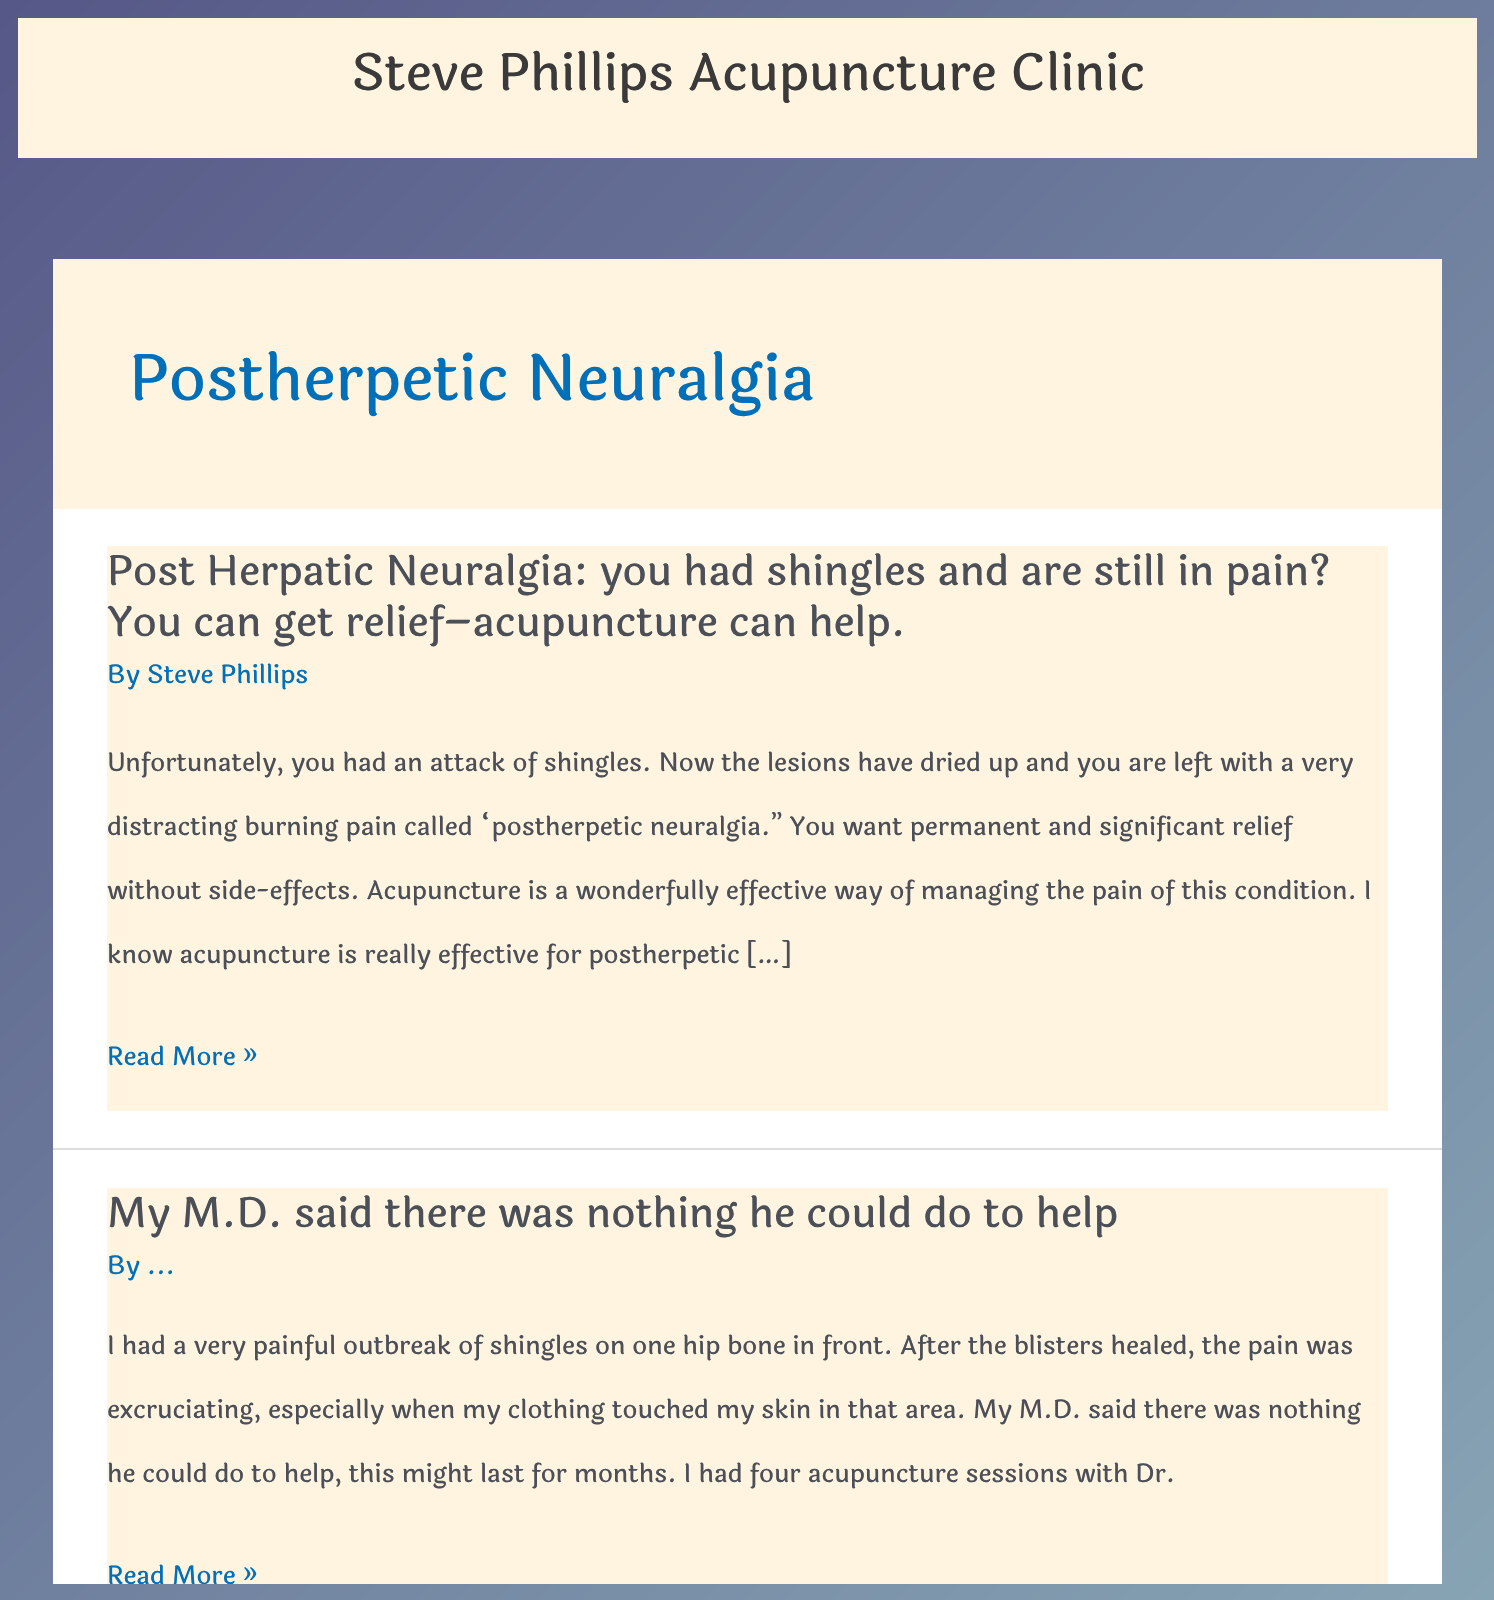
void draw(SkCanvas* canvas) {
  SkPaint paint;
  paint.setAntiAlias(true);
  auto face = [&](const char* family, int weight, float size, bool italic = false) {
    SkFontStyle style(weight, SkFontStyle::kNormal_Width,
      italic ? SkFontStyle::kItalic_Slant : SkFontStyle::kUpright_Slant);
    SkFont result(fontMgr->matchFamilyStyle(family, style), size);
    result.setSubpixel(true);
    return result;
  };
  canvas->clear(0xffffffff);
  {
    const SkColor colors[] = {0xff87a4b4, 0xff565887};
    const float stops[] = {0, 1};
    const SkPoint ends[] = {{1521, 1575}, {-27, 27}};
    paint.setShader(SkGradientShader::MakeLinear(ends, colors, stops, 2, SkTileMode::kClamp));
    paint.setAlpha(255);
  }
  canvas->drawRect(SkRect::MakeXYWH(0, 18, 1494, 1566), paint);
  canvas->drawRect(SkRect::MakeXYWH(0, 0, 1494, 18), paint);
  paint.setShader(nullptr);
  {
    const struct { float x, y, w, h; SkColor color; } items[] = {
      {18, 18, 1459, 140, 0xfffff4e0},
      {53, 259, 1389, 250, 0xfffff4e0},
      {53, 509, 1389, 639, 0xffffffff},
      {53, 1148, 1389, 2, 0xffdddddd},
      {107, 546, 1281, 565, 0xfffff4e0},
      {53, 1150, 1389, 434, 0xffffffff},
      {107, 1188, 1281, 396, 0xfffff4e0},
    };
    for (auto [x, y, w, h, color] : items) {
      paint.setColor(color);
      canvas->drawRect(SkRect::MakeXYWH(x, y, w, h), paint);
    }
  }
  auto f0 = face("Laila", 500, 51.1f);
  paint.setColor(0xff3a3a3a);
  canvas->drawString("Steve Phillips Acupuncture Clinic", 351, 90, f0, paint);
  auto f1 = face("Laila", 500, 63.75f);
  paint.setColor(0xff0170b9);
  canvas->drawString("Postherpetic Neuralgia", 129, 400, f1, paint);
  auto f2 = face("Laila", 500, 41.5f);
  paint.setColor(0xff4b4f58);
  canvas->drawString("Post Herpatic Neuralgia: you had shingles and are still in pain?", 107, 585, f2, paint);
  canvas->drawString("You can get relief–acupuncture can help.", 107, 636, f2, paint);
  auto f3 = face("Laila", 500, 25.55f);
  paint.setColor(0xff0170b9);
  canvas->drawString("By Steve Phillips", 107, 683, f3, paint);
  paint.setColor(0xff4b4f58);
  {
    const struct { const char* s; float x, y; } items[] = {
      {"Unfortunately, you had an attack of shingles. Now the lesions have dried up and you are left with a very", 107, 771},
      {"distracting burning pain called “postherpetic neuralgia.” You want permanent and significant relief", 107, 835},
      {"without side-effects. Acupuncture is a wonderfully effective way of managing the pain of this condition. I", 107, 899},
      {"know acupuncture is really effective for postherpetic […]", 107, 963},
    };
    for (auto [s, x, y] : items) {
      canvas->drawString(s, x, y, f3, paint);
    }
  }
  paint.setColor(0xff0170b9);
  canvas->drawString("Read More »", 107, 1065, f3, paint);
  paint.setColor(0xff4b4f58);
  canvas->drawString("My M.D. said there was nothing he could do to help", 107, 1227, f2, paint);
  paint.setColor(0xff0170b9);
  canvas->drawString("By ...", 107, 1274, f3, paint);
  paint.setColor(0xff4b4f58);
  {
    const struct { const char* s; float x, y; } items[] = {
      {"I had a very painful outbreak of shingles on one hip bone in front. After the blisters healed, the pain was", 107, 1354},
      {"excruciating, especially when my clothing touched my skin in that area. My M.D. said there was nothing", 107, 1418},
      {"he could do to help, this might last for months. I had four acupuncture sessions with Dr.", 107, 1482},
    };
    for (auto [s, x, y] : items) {
      canvas->drawString(s, x, y, f3, paint);
    }
  }
  paint.setColor(0xff0170b9);
  canvas->drawString("Read More »", 107, 1584, f3, paint);
  {
    const SkColor colors[] = {0xff87a4b4, 0xff565887};
    const float stops[] = {0, 1};
    const SkPoint ends[] = {{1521, 1575}, {-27, 27}};
    paint.setShader(SkGradientShader::MakeLinear(ends, colors, stops, 2, SkTileMode::kClamp));
    paint.setAlpha(255);
  }
  canvas->drawRect(SkRect::MakeXYWH(0, 1584, 1494, 16), paint);
}
